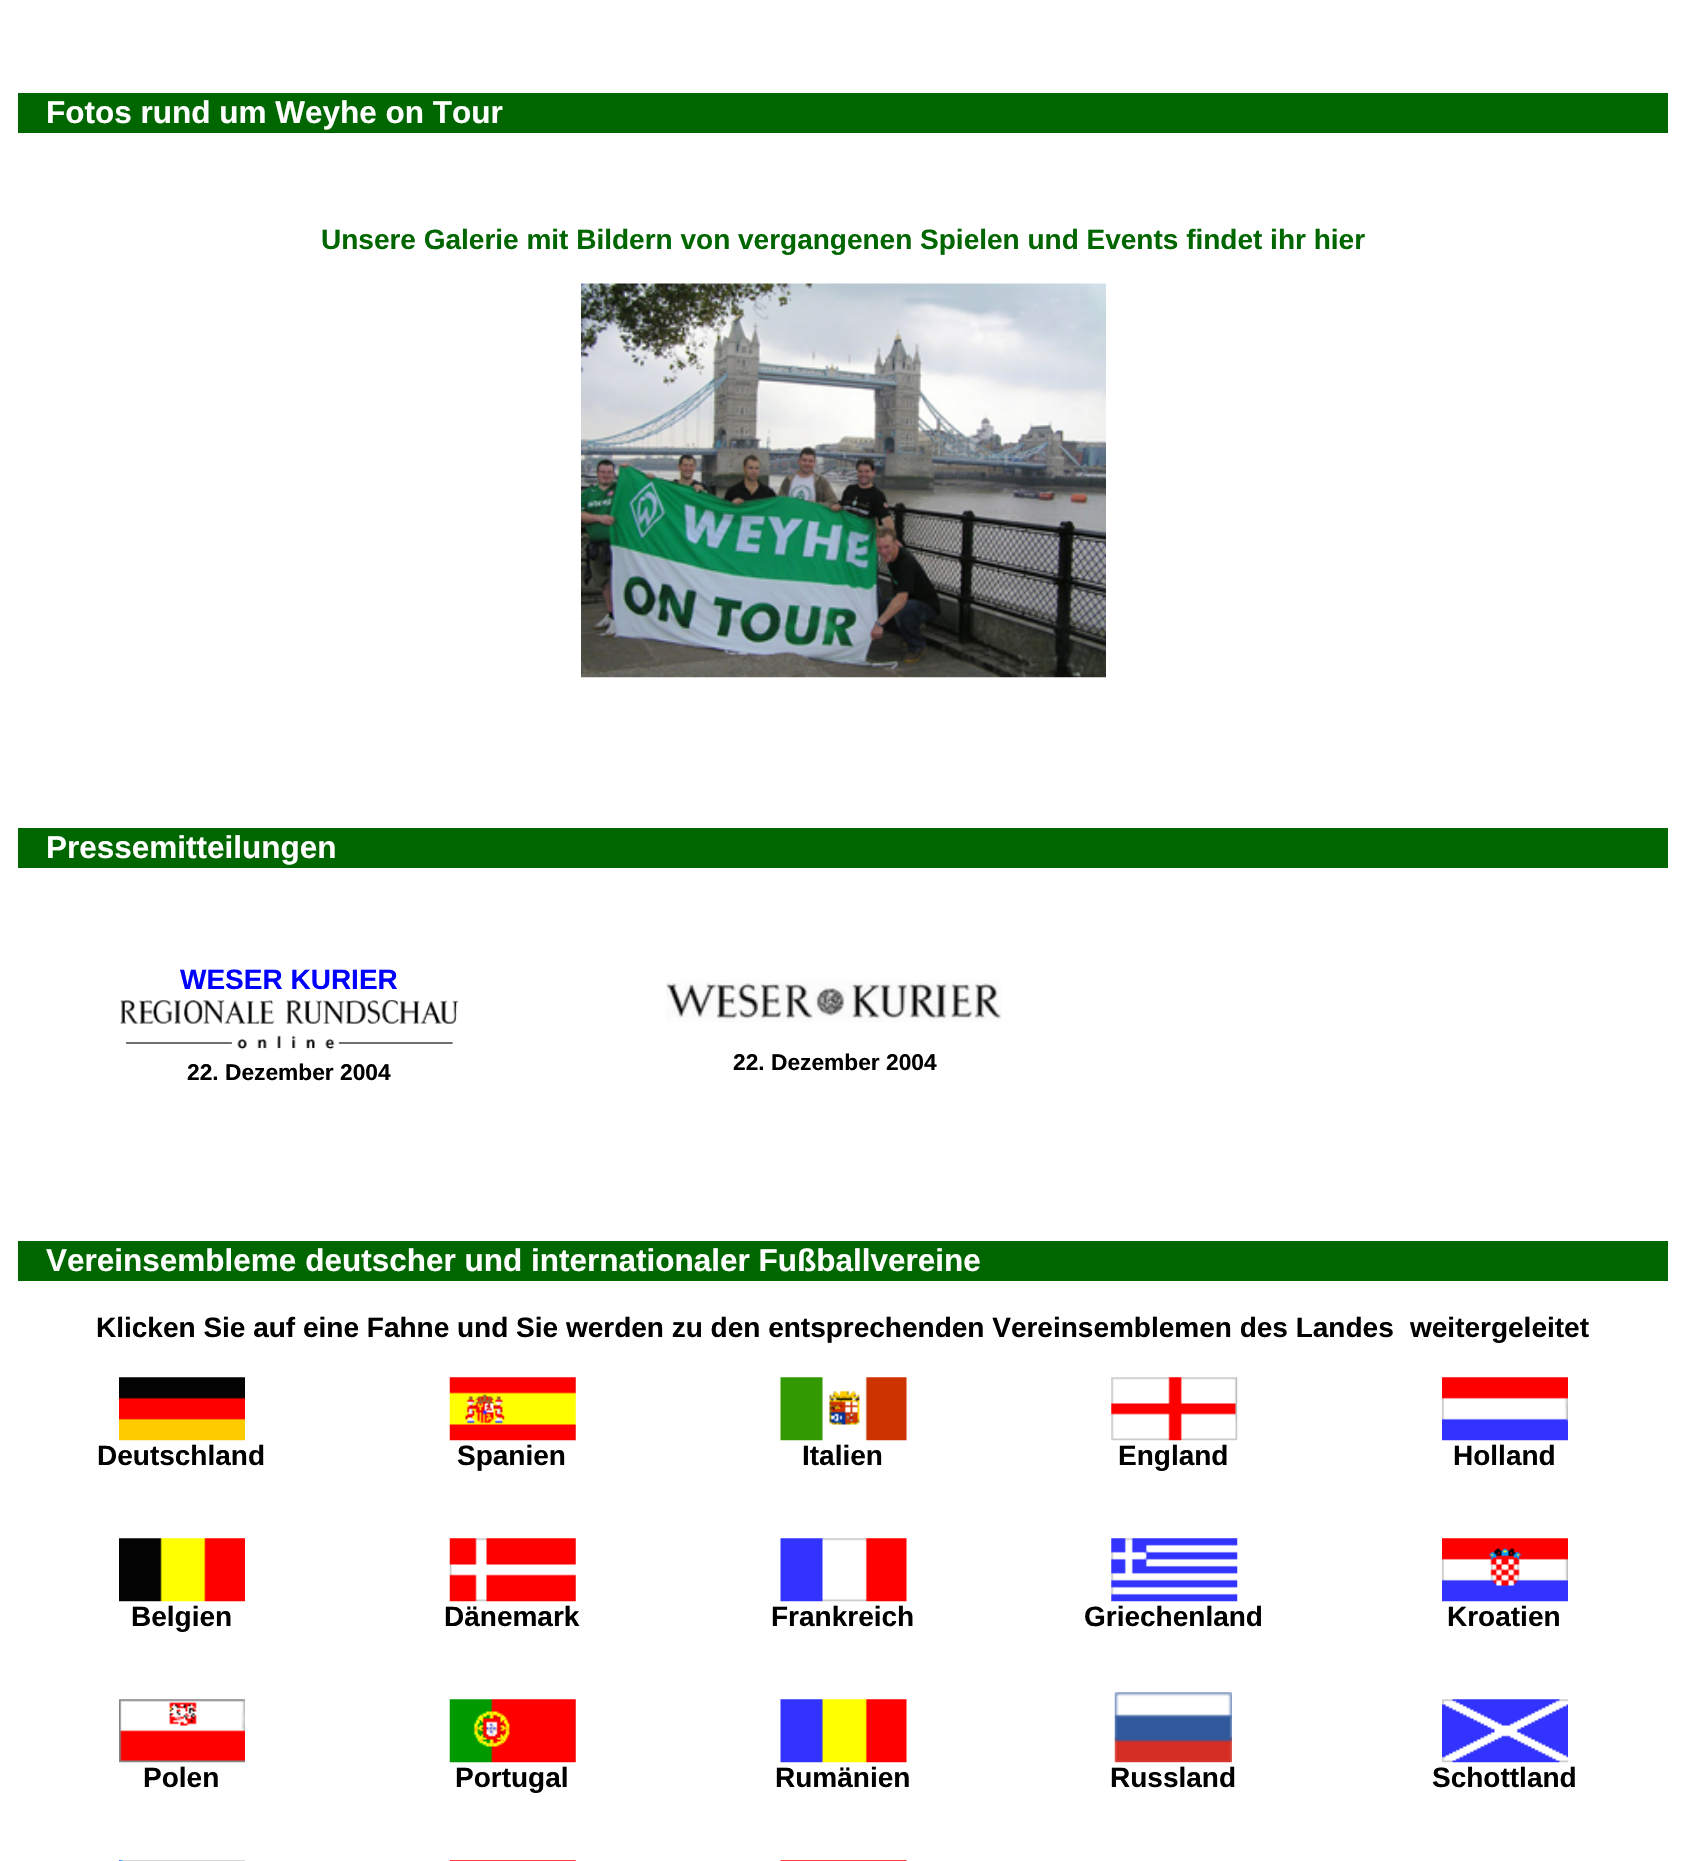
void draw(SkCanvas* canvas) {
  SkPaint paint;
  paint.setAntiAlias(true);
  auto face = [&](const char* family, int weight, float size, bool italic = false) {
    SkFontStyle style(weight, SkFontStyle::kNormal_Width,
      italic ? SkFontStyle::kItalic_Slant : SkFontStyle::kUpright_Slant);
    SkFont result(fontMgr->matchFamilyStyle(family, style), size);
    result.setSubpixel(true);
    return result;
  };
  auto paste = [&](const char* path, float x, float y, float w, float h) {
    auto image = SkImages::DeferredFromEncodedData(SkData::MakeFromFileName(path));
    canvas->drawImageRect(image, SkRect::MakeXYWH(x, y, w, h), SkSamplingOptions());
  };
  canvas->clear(0xffffffff);
  paint.setColor(0xff006600);
  canvas->drawRect(SkRect::MakeXYWH(18, 93, 1650, 40), paint);
  paste("img/1.png", 581, 283, 525, 395);
  canvas->drawRect(SkRect::MakeXYWH(18, 828, 1650, 40), paint);
  paste("img/2.png", 120, 1000, 339, 50);
  paste("img/3.png", 666, 980, 336, 42);
  canvas->drawRect(SkRect::MakeXYWH(18, 1241, 1650, 40), paint);
  paste("img/4.png", 119, 1377, 126, 64);
  paste("img/5.png", 449, 1377, 127, 64);
  paste("img/6.png", 780, 1377, 127, 64);
  paste("img/7.png", 1111, 1377, 127, 64);
  paste("img/8.png", 1442, 1377, 126, 64);
  paste("img/9.png", 119, 1538, 126, 64);
  paste("img/10.png", 449, 1538, 127, 64);
  paste("img/11.png", 780, 1538, 127, 64);
  paste("img/12.png", 1111, 1538, 127, 64);
  paste("img/13.png", 1442, 1538, 126, 64);
  paste("img/14.png", 119, 1699, 126, 64);
  paste("img/15.png", 449, 1699, 127, 64);
  paste("img/16.png", 780, 1699, 127, 64);
  paste("img/17.png", 1114, 1692, 118, 71);
  paste("img/18.png", 1442, 1699, 126, 64);
  paste("img/19.png", 119, 1860, 126, 1);
  paste("img/20.png", 449, 1860, 127, 1);
  paste("img/21.png", 780, 1860, 127, 1);
  auto f0 = face("Liberation Sans", 700, 31.5f);
  paint.setColor(0xffffffff);
  canvas->drawString("Fotos rund um Weyhe on Tour", 46, 123, f0, paint);
  auto f1 = face("Liberation Sans", 700, 28);
  paint.setColor(0xff006600);
  canvas->drawString("Unsere Galerie mit Bildern von vergangenen Spielen und Events findet ihr hier", 321, 249, f1, paint);
  paint.setColor(0xffffffff);
  canvas->drawString("Pressemitteilungen", 46, 858, f0, paint);
  paint.setColor(0xff0000ff);
  canvas->drawString("WESER KURIER", 180, 989, f1, paint);
  auto f2 = face("Liberation Sans", 700, 22.75f);
  paint.setColor(0xff000000);
  canvas->drawString("22. Dezember 2004", 187, 1080, f2, paint);
  canvas->drawString("22. Dezember 2004", 733, 1070, f2, paint);
  paint.setColor(0xffffffff);
  canvas->drawString("Vereinsembleme deutscher und internationaler Fußballvereine", 46, 1271, f0, paint);
  paint.setColor(0xff000000);
  {
    const struct { const char* s; float x, y; } items[] = {
      {"Klicken Sie auf eine Fahne und Sie werden zu den entsprechenden Vereinsemblemen des Landes", 96, 1337},
      {"weitergeleitet", 1410, 1337},
      {"Deutschland", 97, 1465},
      {"Spanien", 457, 1465},
      {"Italien", 802, 1465},
      {"England", 1118, 1465},
      {"Holland", 1453, 1465},
      {"Belgien", 131, 1626},
      {"Dänemark", 444, 1626},
      {"Frankreich", 771, 1626},
      {"Griechenland", 1084, 1626},
      {"Kroatien", 1447, 1626},
      {"Polen", 143, 1787},
      {"Portugal", 455, 1787},
      {"Rumänien", 775, 1787},
      {"Russland", 1110, 1787},
      {"Schottland", 1432, 1787},
    };
    for (auto [s, x, y] : items) {
      canvas->drawString(s, x, y, f1, paint);
    }
  }
}
